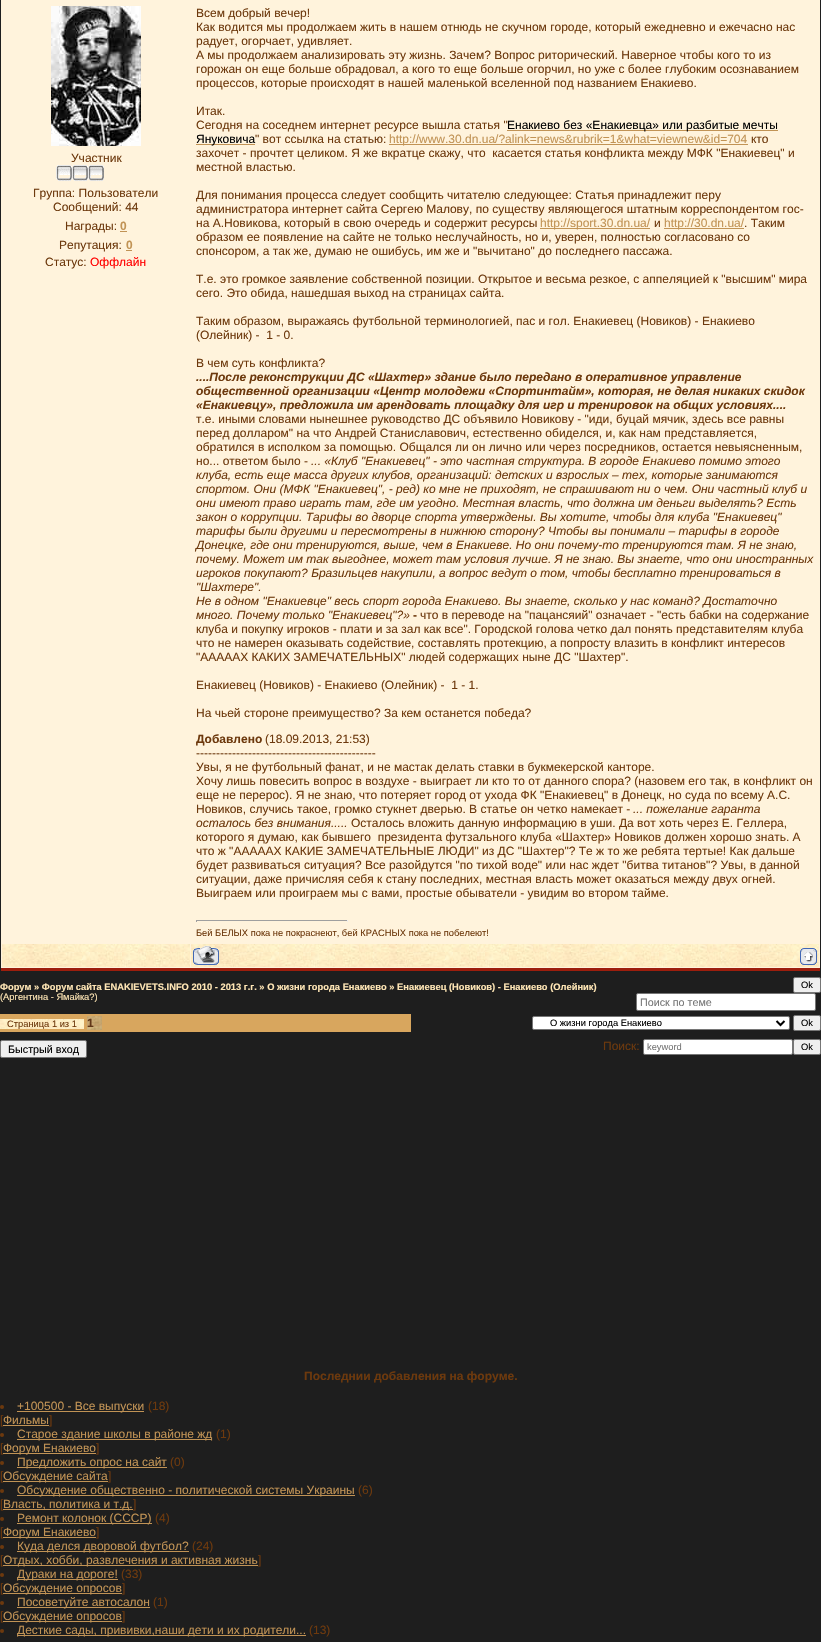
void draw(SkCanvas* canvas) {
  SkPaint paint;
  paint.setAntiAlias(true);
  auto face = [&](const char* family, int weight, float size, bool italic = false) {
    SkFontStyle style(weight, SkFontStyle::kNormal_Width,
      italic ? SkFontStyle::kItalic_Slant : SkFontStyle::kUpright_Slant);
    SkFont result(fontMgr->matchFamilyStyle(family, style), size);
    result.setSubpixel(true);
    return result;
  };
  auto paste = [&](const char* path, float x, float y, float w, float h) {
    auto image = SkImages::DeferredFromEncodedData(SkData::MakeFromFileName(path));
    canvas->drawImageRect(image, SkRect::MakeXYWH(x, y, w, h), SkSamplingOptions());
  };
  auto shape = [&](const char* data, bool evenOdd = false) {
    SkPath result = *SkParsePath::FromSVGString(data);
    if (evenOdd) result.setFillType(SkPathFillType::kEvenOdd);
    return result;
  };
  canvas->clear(0xff1e1e1e);
  paint.setColor(0xfffff3dc);
  canvas->drawRect(SkRect::MakeXYWH(1, 0, 819, 968), paint);
  paint.setColor(0xff9d1e0d);
  canvas->drawRect(SkRect::MakeXYWH(1, 968, 819, 3), paint);
  paste("img/1.png", 51, 6, 90, 140);
  paste("img/2.png", 56, 165, 48, 16);
  {
    const struct { float x, y, w, h; SkColor color; } items[] = {
      {120, 231, 7, 1, 0xffc19355},
      {126, 250, 6, 1, 0xffc19355},
      {507, 130, 271, 1, 0xffc19355},
      {196, 144, 59, 1, 0xffc19355},
      {389, 144, 359, 1, 0xffc19355},
      {540, 228, 110, 1, 0xffc19355},
      {664, 228, 80, 1, 0xffc19355},
      {196, 920, 152, 1, 0xff9f9f9f},
      {347, 920, 1, 2, 0xffeeeeee},
      {196, 920, 1, 2, 0xff9f9f9f},
    };
    for (auto [x, y, w, h, color] : items) {
      paint.setColor(color);
      canvas->drawRect(SkRect::MakeXYWH(x, y, w, h), paint);
    }
  }
  paste("img/3.png", 2, 944, 188, 23);
  paste("img/4.png", 191, 944, 628, 23);
  paste("img/5.png", 193, 946, 26, 19);
  paste("img/6.png", 800, 948, 17, 17);
  paint.setColor(0xffefefef);
  canvas->drawRoundRect(SkRect::MakeXYWH(793.5f, 977.5f, 27, 15), 1.5f, 1.5f, paint);
  paint.setStroke(true);
  paint.setStrokeWidth(1);
  paint.setColor(0xff767676);
  canvas->drawRoundRect(SkRect::MakeXYWH(793.5f, 977.5f, 27, 15), 1.5f, 1.5f, paint);
  paint.setStroke(false);
  paint.setColor(0xffffffff);
  canvas->drawRoundRect(SkRect::MakeXYWH(636.5f, 993.5f, 179, 17), 1.5f, 1.5f, paint);
  paint.setStroke(true);
  paint.setColor(0xff767676);
  canvas->drawRoundRect(SkRect::MakeXYWH(636.5f, 993.5f, 179, 17), 1.5f, 1.5f, paint);
  paint.setStroke(false);
  paint.setColor(0xffd8a65e);
  canvas->drawRect(SkRect::MakeXYWH(0, 1014, 411, 18), paint);
  paste("img/7.png", 0, 1019, 84, 10);
  paste("img/8.png", 87, 1016, 15, 14);
  paint.setColor(0xffffffff);
  canvas->drawRoundRect(SkRect::MakeXYWH(532.5f, 1016.5f, 257, 13), 1.5f, 1.5f, paint);
  paint.setStroke(true);
  paint.setColor(0xff767676);
  canvas->drawRoundRect(SkRect::MakeXYWH(532.5f, 1016.5f, 257, 13), 1.5f, 1.5f, paint);
  paint.setStrokeWidth(2);
  paint.setColor(0xff000000);
  canvas->drawPath(shape("M776.5 1021L780.5 1025L784.5 1021"), paint);
  paint.setStroke(false);
  paint.setColor(0xffefefef);
  canvas->drawRoundRect(SkRect::MakeXYWH(793.5f, 1015.5f, 27, 15), 1.5f, 1.5f, paint);
  paint.setStroke(true);
  paint.setStrokeWidth(1);
  paint.setColor(0xff767676);
  canvas->drawRoundRect(SkRect::MakeXYWH(793.5f, 1015.5f, 27, 15), 1.5f, 1.5f, paint);
  paint.setStroke(false);
  paint.setColor(0xffefefef);
  canvas->drawRoundRect(SkRect::MakeXYWH(0.5f, 1040.5f, 86, 17), 1.5f, 1.5f, paint);
  paint.setStroke(true);
  paint.setColor(0xff767676);
  canvas->drawRoundRect(SkRect::MakeXYWH(0.5f, 1040.5f, 86, 17), 1.5f, 1.5f, paint);
  paint.setStroke(false);
  paint.setColor(0xffffffff);
  canvas->drawRoundRect(SkRect::MakeXYWH(643.5f, 1039.5f, 149, 15), 1.5f, 1.5f, paint);
  paint.setStroke(true);
  paint.setColor(0xff767676);
  canvas->drawRoundRect(SkRect::MakeXYWH(643.5f, 1039.5f, 149, 15), 1.5f, 1.5f, paint);
  paint.setStroke(false);
  paint.setColor(0xffefefef);
  canvas->drawRoundRect(SkRect::MakeXYWH(793.5f, 1039.5f, 27, 15), 1.5f, 1.5f, paint);
  paint.setStroke(true);
  paint.setColor(0xff767676);
  canvas->drawRoundRect(SkRect::MakeXYWH(793.5f, 1039.5f, 27, 15), 1.5f, 1.5f, paint);
  paint.setStroke(false);
  paint.setColor(0xff6d390d);
  canvas->drawCircle(2, 1407, 2, paint);
  paint.setColor(0xffc19355);
  canvas->drawRect(SkRect::MakeXYWH(17, 1411, 127, 1), paint);
  paint.setColor(0xff6d390d);
  canvas->drawCircle(2, 1435, 2, paint);
  paint.setColor(0xffc19355);
  canvas->drawRect(SkRect::MakeXYWH(17, 1439, 195, 1), paint);
  paint.setColor(0xff6d390d);
  canvas->drawCircle(2, 1463, 2, paint);
  paint.setColor(0xffc19355);
  canvas->drawRect(SkRect::MakeXYWH(17, 1467, 150, 1), paint);
  paint.setColor(0xff6d390d);
  canvas->drawCircle(2, 1491, 2, paint);
  paint.setColor(0xffc19355);
  canvas->drawRect(SkRect::MakeXYWH(17, 1495, 338, 1), paint);
  paint.setColor(0xff6d390d);
  canvas->drawCircle(2, 1519, 2, paint);
  paint.setColor(0xffc19355);
  canvas->drawRect(SkRect::MakeXYWH(17, 1523, 135, 1), paint);
  paint.setColor(0xff6d390d);
  canvas->drawCircle(2, 1547, 2, paint);
  paint.setColor(0xffc19355);
  canvas->drawRect(SkRect::MakeXYWH(17, 1551, 172, 1), paint);
  paint.setColor(0xff6d390d);
  canvas->drawCircle(2, 1575, 2, paint);
  paint.setColor(0xffc19355);
  canvas->drawRect(SkRect::MakeXYWH(17, 1579, 101, 1), paint);
  paint.setColor(0xff6d390d);
  canvas->drawCircle(2, 1603, 2, paint);
  paint.setColor(0xffc19355);
  canvas->drawRect(SkRect::MakeXYWH(17, 1607, 133, 1), paint);
  paint.setColor(0xff6d390d);
  canvas->drawCircle(2, 1631, 2, paint);
  paint.setColor(0xffc19355);
  canvas->drawRect(SkRect::MakeXYWH(17, 1635, 289, 1), paint);
  auto f0 = face("Liberation Sans", 400, 12);
  paint.setColor(0xff6d390d);
  {
    const struct { const char* s; float x, y; } items[] = {
      {"Участник", 71, 162},
      {"Группа: Пользователи", 33, 197},
      {"Сообщений: 44", 53, 211},
      {"Награды:", 65, 230},
    };
    for (auto [s, x, y] : items) {
      canvas->drawString(s, x, y, f0, paint);
    }
  }
  auto f1 = face("Liberation Sans", 700, 12);
  paint.setColor(0xffc19355);
  canvas->drawString("0", 120, 230, f1, paint);
  paint.setColor(0xff6d390d);
  canvas->drawString("Репутация:", 59, 249, f0, paint);
  paint.setColor(0xffc19355);
  canvas->drawString("0", 126, 249, f1, paint);
  paint.setColor(0xff6d390d);
  canvas->drawString("Статус:", 45, 266, f0, paint);
  paint.setColor(0xffff0000);
  canvas->drawString("Оффлайн", 90, 266, f0, paint);
  paint.setColor(0xff6d390d);
  {
    const struct { const char* s; float x, y; } items[] = {
      {"Всем добрый вечер!", 196, 17},
      {"Как водится мы продолжаем жить в нашем отнюдь не скучном городе, который ежедневно и ежечасно нас", 196, 31},
      {"радует, огорчает, удивляет.", 196, 45},
      {"А мы продолжаем анализировать эту жизнь. Зачем? Вопрос риторический. Наверное чтобы кого то из", 196, 59},
      {"горожан он еще больше обрадовал, а кого то еще больше огорчил, но уже с более глубоким осознаванием", 196, 73},
      {"процессов, которые происходят в нашей маленькой вселенной под названием Енакиево.", 196, 87},
      {"Итак.", 196, 115},
      {"Сегодня на соседнем интернет ресурсе вышла статья \"", 196, 129},
    };
    for (auto [s, x, y] : items) {
      canvas->drawString(s, x, y, f0, paint);
    }
  }
  paint.setColor(0xff000000);
  canvas->drawString("Енакиево без «Енакиевца» или разбитые мечты", 507, 129, f0, paint);
  canvas->drawString("Януковича", 196, 143, f0, paint);
  paint.setColor(0xff6d390d);
  canvas->drawString("\" вот ссылка на статью:", 255, 143, f0, paint);
  paint.setColor(0xffc19355);
  canvas->drawString("http://www.30.dn.ua/?alink=news&rubrik=1&what=viewnew&id=704", 389, 143, f0, paint);
  paint.setColor(0xff6d390d);
  {
    const struct { const char* s; float x, y; } items[] = {
      {"кто", 751, 143},
      {"захочет - прочтет целиком. Я же вкратце скажу, что  касается статья конфликта между МФК \"Енакиевец\" и", 196, 157},
      {"местной властью.", 196, 171},
      {"Для понимания процесса следует сообщить читателю следующее: Статья принадлежит перу", 196, 199},
      {"администратора интернет сайта Сергею Малову, по существу являющегося штатным корреспондентом гос-", 196, 213},
      {"на А.Новикова, который в свою очередь и содержит ресурсы", 196, 227},
    };
    for (auto [s, x, y] : items) {
      canvas->drawString(s, x, y, f0, paint);
    }
  }
  paint.setColor(0xffc19355);
  canvas->drawString("http://sport.30.dn.ua/", 540, 227, f0, paint);
  paint.setColor(0xff6d390d);
  canvas->drawString("и", 654, 227, f0, paint);
  paint.setColor(0xffc19355);
  canvas->drawString("http://30.dn.ua/", 664, 227, f0, paint);
  paint.setColor(0xff6d390d);
  {
    const struct { const char* s; float x, y; } items[] = {
      {". Таким", 744, 227},
      {"образом ее появление на сайте не только неслучайность, но и, уверен, полностью согласовано со", 196, 241},
      {"спонсором, а так же, думаю не ошибусь, им же и \"вычитано\" до последнего пассажа.", 196, 255},
      {"Т.е. это громкое заявление собственной позиции. Открытое и весьма резкое, с аппеляцией к \"высшим\" мира", 196, 283},
      {"сего. Это обида, нашедшая выход на страницах сайта.", 196, 297},
      {"Таким образом, выражаясь футбольной терминологией, пас и гол. Енакиевец (Новиков) - Енакиево", 196, 325},
      {"(Олейник) -  1 - 0.", 196, 339},
      {"В чем суть конфликта?", 196, 367},
    };
    for (auto [s, x, y] : items) {
      canvas->drawString(s, x, y, f0, paint);
    }
  }
  auto f2 = face("Liberation Sans", 700, 12, true);
  {
    const struct { const char* s; float x, y; } items[] = {
      {"....После реконструкции ДС «Шахтер» здание было передано в оперативное управление", 196, 381},
      {"общественной организации «Центр молодежи «Спортинтайм», которая, не делая никаких скидок", 196, 395},
      {"«Енакиевцу», предложила им арендовать площадку для игр и тренировок на общих условиях....", 196, 409},
    };
    for (auto [s, x, y] : items) {
      canvas->drawString(s, x, y, f2, paint);
    }
  }
  {
    const struct { const char* s; float x, y; } items[] = {
      {"т.е. иными словами нынешнее руководство ДС объявило Новикову - \"иди, буцай мячик, здесь все равны", 196, 423},
      {"перед долларом\" на что Андрей Станиславович, естественно обиделся, и, как нам представляется,", 196, 437},
      {"обратился в исполком за помощью. Общался ли он лично или через посредников, остается невыясненным,", 196, 451},
      {"но... ответом было -", 196, 465},
    };
    for (auto [s, x, y] : items) {
      canvas->drawString(s, x, y, f0, paint);
    }
  }
  auto f3 = face("Liberation Sans", 400, 12, true);
  {
    const struct { const char* s; float x, y; } items[] = {
      {"... «Клуб \"Енакиевец\" - это частная структура. В городе Енакиево помимо этого", 311, 465},
      {"клуба, есть еще масса других клубов, организаций: детских и взрослых – тех, которые занимаются", 196, 479},
      {"спортом. Они (МФК \"Енакиевец\", - ред) ко мне не приходят, не спрашивают ни о чем. Они частный клуб и", 196, 493},
      {"они имеют право играть там, где им угодно. Местная власть, что должна им деньги выделять? Есть", 196, 507},
      {"закон о коррупции. Тарифы во дворце спорта утверждены. Вы хотите, чтобы для клуба \"Енакиевец\"", 196, 521},
      {"тарифы были другими и пересмотрены в нижнюю сторону? Чтобы вы понимали – тарифы в городе", 196, 535},
      {"Донецке, где они тренируются, выше, чем в Енакиеве. Но они почему-то тренируются там. Я не знаю,", 196, 549},
      {"почему. Может им так выгоднее, может там условия лучше. Я не знаю. Вы знаете, что они иностранных", 196, 563},
      {"игроков покупают? Бразильцев накупили, а вопрос ведут о том, чтобы бесплатно тренироваться в", 196, 577},
      {"\"Шахтере\".", 196, 591},
      {"Не в одном \"Енакиевце\" весь спорт города Енакиево. Вы знаете, сколько у нас команд? Достаточно", 196, 605},
      {"много. Почему только \"Енакиевец\"?»", 196, 619},
    };
    for (auto [s, x, y] : items) {
      canvas->drawString(s, x, y, f3, paint);
    }
  }
  canvas->drawString("-", 413, 619, f1, paint);
  {
    const struct { const char* s; float x, y; } items[] = {
      {"что в переводе на \"пацансяий\" означает - \"есть бабки на содержание", 420, 619},
      {"клуба и покупку игроков - плати и за зал как все\". Городской голова четко дал понять представителям клуба", 196, 633},
      {"что не намерен оказывать содействие, составлять протекцию, а попросту влазить в конфликт интересов", 196, 647},
      {"\"АААААХ КАКИХ ЗАМЕЧАТЕЛЬНЫХ\" людей содержащих ныне ДС \"Шахтер\".", 196, 661},
      {"Енакиевец (Новиков) - Енакиево (Олейник) -  1 - 1.", 196, 689},
      {"На чьей стороне преимущество? За кем останется победа?", 196, 717},
    };
    for (auto [s, x, y] : items) {
      canvas->drawString(s, x, y, f0, paint);
    }
  }
  canvas->drawString("Добавлено", 196, 743, f1, paint);
  {
    const struct { const char* s; float x, y; } items[] = {
      {"(18.09.2013, 21:53)", 265, 743},
      {"---------------------------------------------", 196, 757},
      {"Увы, я не футбольный фанат, и не мастак делать ставки в букмекерской канторе.", 196, 771},
      {"Хочу лишь повесить вопрос в воздухе - выиграет ли кто то от данного спора? (назовем его так, в конфликт он", 196, 785},
      {"еще не перерос). Я не знаю, что потеряет город от ухода ФК \"Енакиевец\" в Донецк, но суда по всему А.С.", 196, 799},
      {"Новиков, случись такое, громко стукнет дверью. В статье он четко намекает -", 196, 813},
    };
    for (auto [s, x, y] : items) {
      canvas->drawString(s, x, y, f0, paint);
    }
  }
  canvas->drawString("... пожелание гаранта", 633, 813, f3, paint);
  canvas->drawString("осталось без внимания.....", 196, 827, f3, paint);
  {
    const struct { const char* s; float x, y; } items[] = {
      {"Осталось вложить данную информацию в уши. Да вот хоть через Е. Геллера,", 351, 827},
      {"которого я думаю, как бывшего  президента футзального клуба «Шахтер» Новиков должен хорошо знать. А", 196, 841},
      {"что ж \"АААААХ КАКИЕ ЗАМЕЧАТЕЛЬНЫЕ ЛЮДИ\" из ДС \"Шахтер\"? Те ж то же ребята тертые! Как дальше", 196, 855},
      {"будет развиваться ситуация? Все разойдутся \"по тихой воде\" или нас ждет \"битва титанов\"? Увы, в данной", 196, 869},
      {"ситуации, даже причисляя себя к стану последних, местная власть может оказаться между двух огней.", 196, 883},
      {"Выиграем или проиграем мы с вами, простые обыватели - увидим во втором тайме.", 196, 897},
    };
    for (auto [s, x, y] : items) {
      canvas->drawString(s, x, y, f0, paint);
    }
  }
  auto f4 = face("Liberation Sans", 400, 9.33f);
  canvas->drawString("Бей БЕЛЫХ пока не покраснеют, бей КРАСНЫХ пока не побелеют!", 196, 936, f4, paint);
  auto f5 = face("Liberation Sans", 700, 9.33f);
  paint.setColor(0xffffe6b5);
  canvas->drawString("Форум » Форум сайта ENAKIEVETS.INFO 2010 - 2013 г.г. » О жизни города Енакиево » Енакиевец (Новиков) - Енакиево (Олейник)", 0, 990, f5, paint);
  canvas->drawString("(Аргентина - Ямайка?)", 0, 1000, f4, paint);
  paint.setColor(0xff000000);
  canvas->drawString("Ok", 801, 988, f4, paint);
  auto f6 = face("Liberation Sans", 400, 10.75f);
  paint.setColor(0xff757575);
  canvas->drawString("Поиск по теме", 640, 1006, f6, paint);
  paint.setColor(0xff6d390d);
  canvas->drawString("Страница 1 из 1", 7, 1027, f4, paint);
  paint.setColor(0xff613618);
  canvas->drawString("1", 87, 1027, f1, paint);
  paint.setColor(0xff000000);
  canvas->drawString("О жизни города Енакиево", 550, 1026, f4, paint);
  canvas->drawString("Ok", 801, 1026, f4, paint);
  canvas->drawString("Быстрый вход", 8, 1053, f6, paint);
  paint.setColor(0xff6d390d);
  canvas->drawString("Поиск:", 603, 1050, f0, paint);
  paint.setColor(0xff757575);
  canvas->drawString("keyword", 647, 1050, f4, paint);
  paint.setColor(0xff000000);
  canvas->drawString("Ok", 801, 1050, f4, paint);
  paint.setColor(0xff6d390d);
  canvas->drawString("Последнии добавления на форуме.", 304, 1380, f1, paint);
  paint.setColor(0xffc19355);
  canvas->drawString("+100500 - Все выпуски", 17, 1410, f0, paint);
  paint.setColor(0xff6d390d);
  canvas->drawString("(18)", 148, 1410, f0, paint);
  canvas->drawString("[", 0, 1424, f0, paint);
  paint.setColor(0xffc19355);
  canvas->drawString("Фильмы", 3, 1424, f0, paint);
  canvas->drawRect(SkRect::MakeXYWH(3, 1425, 46, 1), paint);
  paint.setColor(0xff6d390d);
  canvas->drawString("]", 49, 1424, f0, paint);
  paint.setColor(0xffc19355);
  canvas->drawString("Старое здание школы в районе жд", 17, 1438, f0, paint);
  paint.setColor(0xff6d390d);
  canvas->drawString("(1)", 216, 1438, f0, paint);
  canvas->drawString("[", 0, 1452, f0, paint);
  paint.setColor(0xffc19355);
  canvas->drawRect(SkRect::MakeXYWH(3, 1453, 93, 1), paint);
  canvas->drawString("Форум Енакиево", 3, 1452, f0, paint);
  paint.setColor(0xff6d390d);
  canvas->drawString("]", 96, 1452, f0, paint);
  paint.setColor(0xffc19355);
  canvas->drawString("Предложить опрос на сайт", 17, 1466, f0, paint);
  paint.setColor(0xff6d390d);
  canvas->drawString("(0)", 170, 1466, f0, paint);
  canvas->drawString("[", 0, 1480, f0, paint);
  paint.setColor(0xffc19355);
  canvas->drawRect(SkRect::MakeXYWH(3, 1481, 105, 1), paint);
  canvas->drawString("Обсуждение сайта", 3, 1480, f0, paint);
  paint.setColor(0xff6d390d);
  canvas->drawString("]", 108, 1480, f0, paint);
  paint.setColor(0xffc19355);
  canvas->drawString("Обсуждение общественно - политической системы Украины", 17, 1494, f0, paint);
  paint.setColor(0xff6d390d);
  canvas->drawString("(6)", 358, 1494, f0, paint);
  canvas->drawString("[", 0, 1508, f0, paint);
  paint.setColor(0xffc19355);
  canvas->drawRect(SkRect::MakeXYWH(3, 1509, 130, 1), paint);
  canvas->drawString("Власть, политика и т.д.", 3, 1508, f0, paint);
  paint.setColor(0xff6d390d);
  canvas->drawString("]", 133, 1508, f0, paint);
  paint.setColor(0xffc19355);
  canvas->drawString("Ремонт колонок (СССР)", 17, 1522, f0, paint);
  paint.setColor(0xff6d390d);
  canvas->drawString("(4)", 155, 1522, f0, paint);
  canvas->drawString("[", 0, 1536, f0, paint);
  paint.setColor(0xffc19355);
  canvas->drawRect(SkRect::MakeXYWH(3, 1537, 93, 1), paint);
  canvas->drawString("Форум Енакиево", 3, 1536, f0, paint);
  paint.setColor(0xff6d390d);
  canvas->drawString("]", 96, 1536, f0, paint);
  paint.setColor(0xffc19355);
  canvas->drawString("Куда делся дворовой футбол?", 17, 1550, f0, paint);
  paint.setColor(0xff6d390d);
  canvas->drawString("(24)", 192, 1550, f0, paint);
  canvas->drawString("[", 0, 1564, f0, paint);
  paint.setColor(0xffc19355);
  canvas->drawRect(SkRect::MakeXYWH(3, 1565, 255, 1), paint);
  canvas->drawString("Отдых, хобби, развлечения и активная жизнь", 3, 1564, f0, paint);
  paint.setColor(0xff6d390d);
  canvas->drawString("]", 258, 1564, f0, paint);
  paint.setColor(0xffc19355);
  canvas->drawString("Дураки на дороге!", 17, 1578, f0, paint);
  paint.setColor(0xff6d390d);
  canvas->drawString("(33)", 121, 1578, f0, paint);
  canvas->drawString("[", 0, 1592, f0, paint);
  paint.setColor(0xffc19355);
  canvas->drawRect(SkRect::MakeXYWH(3, 1593, 119, 1), paint);
  canvas->drawString("Обсуждение опросов", 3, 1592, f0, paint);
  paint.setColor(0xff6d390d);
  canvas->drawString("]", 122, 1592, f0, paint);
  paint.setColor(0xffc19355);
  canvas->drawString("Посоветуйте автосалон", 17, 1606, f0, paint);
  paint.setColor(0xff6d390d);
  canvas->drawString("(1)", 153, 1606, f0, paint);
  canvas->drawString("[", 0, 1620, f0, paint);
  paint.setColor(0xffc19355);
  canvas->drawRect(SkRect::MakeXYWH(3, 1621, 119, 1), paint);
  canvas->drawString("Обсуждение опросов", 3, 1620, f0, paint);
  paint.setColor(0xff6d390d);
  canvas->drawString("]", 122, 1620, f0, paint);
  paint.setColor(0xffc19355);
  canvas->drawString("Десткие сады, прививки,наши дети и их родители...", 17, 1634, f0, paint);
  paint.setColor(0xff6d390d);
  canvas->drawString("(13)", 309, 1634, f0, paint);
}
